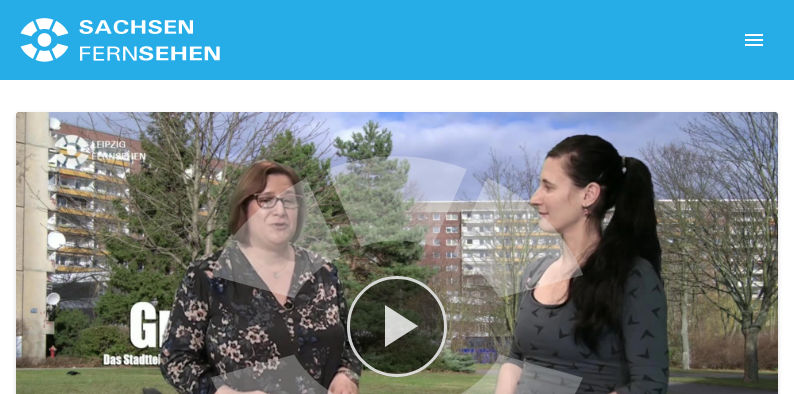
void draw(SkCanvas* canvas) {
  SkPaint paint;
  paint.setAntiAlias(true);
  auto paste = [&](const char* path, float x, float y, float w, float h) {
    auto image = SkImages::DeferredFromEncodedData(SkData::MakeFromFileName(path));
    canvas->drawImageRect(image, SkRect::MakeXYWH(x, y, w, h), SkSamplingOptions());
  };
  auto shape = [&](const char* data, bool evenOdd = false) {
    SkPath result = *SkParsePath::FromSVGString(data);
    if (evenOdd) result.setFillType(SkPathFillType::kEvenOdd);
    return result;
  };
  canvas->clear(0xffffffff);
  paint.setColor(0xff26ade7);
  canvas->drawRect(SkRect::MakeXYWH(0, 0, 794, 80), paint);
  paste("img/1.png", 20, 18, 200, 44);
  paste("img/2.png", 745, 34, 18, 12);
  paint.setColor(0x26000000);
  paint.setMaskFilter(SkMaskFilter::MakeBlur(kNormal_SkBlurStyle, 2));
  canvas->drawRoundRect(SkRect::MakeXYWH(16, 114, 762, 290), 4, 4, paint);
  paint.setMaskFilter(nullptr);
  paste("img/3.png", 16, 112, 762, 4);
  paste("img/4.png", 16, 112, 762, 4);
  paste("img/5.png", 16, 112, 762, 282);
  paste("img/6.png", 210, 156, 373, 238);
  paint.setColor(0x7a000000);
  canvas->drawRoundRect(SkRect::MakeXYWH(347, 276, 100, 101), 50, 50, paint);
  paint.setStroke(true);
  paint.setStrokeWidth(3);
  paint.setColor(0xccffffff);
  canvas->drawRoundRect(SkRect::MakeXYWH(348.5f, 277.5f, 97, 98), 48.5f, 48.5f, paint);
  paint.setStroke(false);
  canvas->drawPath(shape("M385 305V347L418 326Z"), paint);
}
